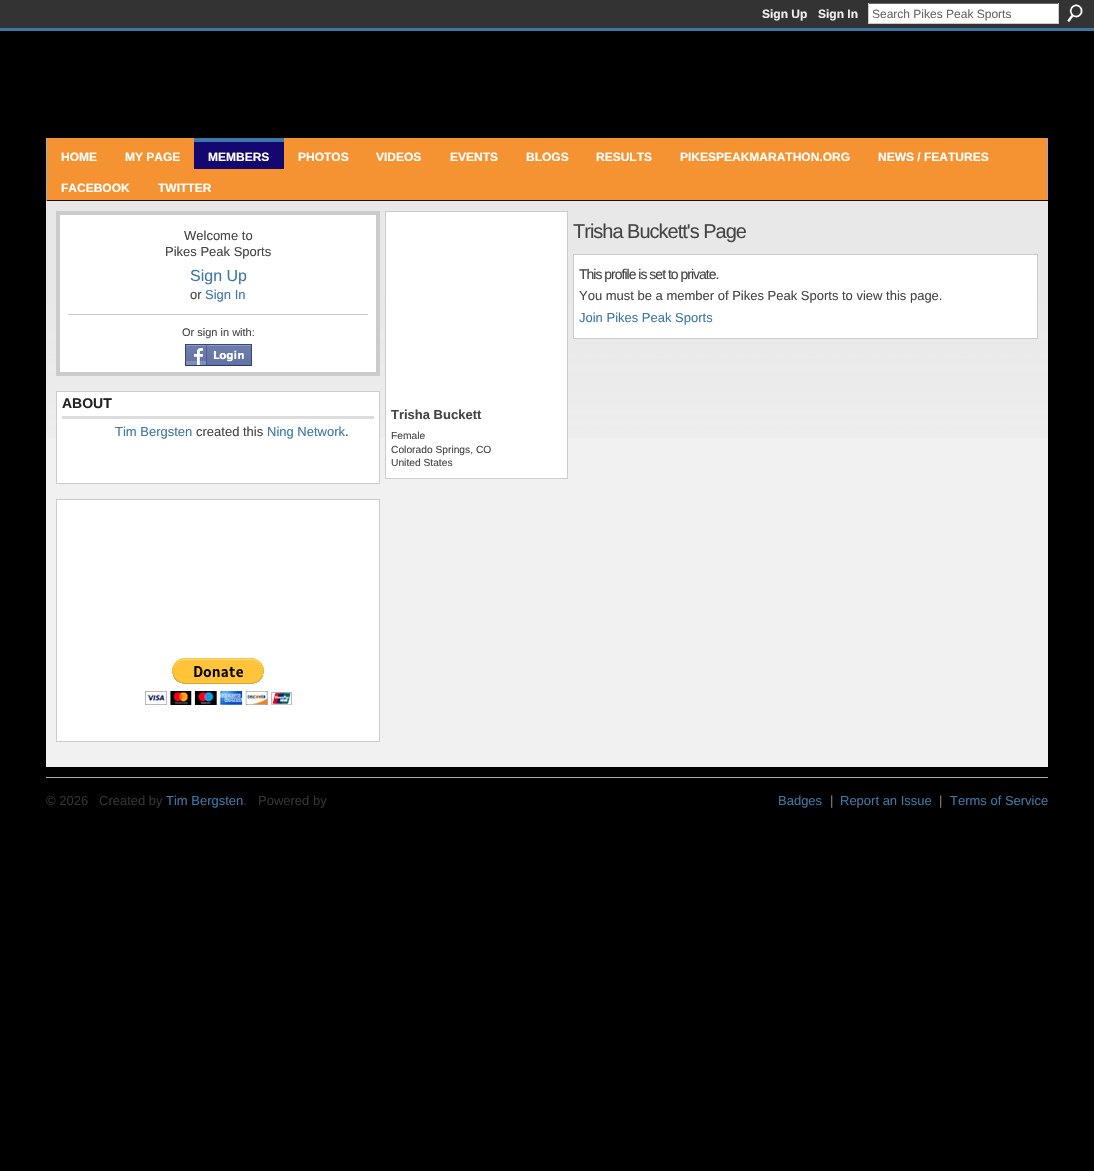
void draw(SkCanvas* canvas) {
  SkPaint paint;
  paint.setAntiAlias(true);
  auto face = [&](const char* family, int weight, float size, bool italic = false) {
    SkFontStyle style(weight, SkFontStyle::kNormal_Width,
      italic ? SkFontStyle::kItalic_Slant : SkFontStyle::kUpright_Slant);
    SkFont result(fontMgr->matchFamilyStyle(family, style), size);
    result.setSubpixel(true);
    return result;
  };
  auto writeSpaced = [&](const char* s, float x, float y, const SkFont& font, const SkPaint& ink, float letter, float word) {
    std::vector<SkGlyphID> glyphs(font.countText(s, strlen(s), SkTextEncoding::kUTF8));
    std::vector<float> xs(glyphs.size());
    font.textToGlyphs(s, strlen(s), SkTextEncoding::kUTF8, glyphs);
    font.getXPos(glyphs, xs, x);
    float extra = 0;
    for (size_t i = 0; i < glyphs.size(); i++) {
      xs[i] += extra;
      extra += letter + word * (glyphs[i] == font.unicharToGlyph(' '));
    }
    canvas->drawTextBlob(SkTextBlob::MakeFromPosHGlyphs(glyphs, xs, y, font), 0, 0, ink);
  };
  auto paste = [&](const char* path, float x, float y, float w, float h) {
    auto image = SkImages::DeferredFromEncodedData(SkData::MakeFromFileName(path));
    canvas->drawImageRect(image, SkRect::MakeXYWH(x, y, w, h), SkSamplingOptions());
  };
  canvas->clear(0xff000000);
  {
    const struct { float x, y, w, h; SkColor color; } items[] = {
      {0, 0, 1094, 28, 0xff333333},
      {869, 4, 189, 19, 0xffffffff},
      {868, 3, 191, 1, 0xff666666},
      {1058, 3, 1, 21, 0xffcccccc},
      {868, 23, 191, 1, 0xffcccccc},
      {868, 3, 1, 21, 0xffcccccc},
    };
    for (auto [x, y, w, h, color] : items) {
      paint.setColor(color);
      canvas->drawRect(SkRect::MakeXYWH(x, y, w, h), paint);
    }
  }
  paste("img/1.png", 1067, 4, 16, 18);
  {
    const struct { float x, y, w, h; SkColor color; } items[] = {
      {0, 28, 1094, 3, 0xff3c78a7},
      {47, 138, 1000, 62, 0xfff59332},
      {1047, 138, 1, 63, 0xffaaaaaa},
      {46, 200, 1002, 1, 0xff111111},
      {46, 138, 1, 63, 0xffaaaaaa},
      {194, 142, 90, 27, 0xff150770},
      {194, 138, 90, 4, 0xff3c78a7},
      {46, 298, 1002, 469, 0xfff1f1f1},
    };
    for (auto [x, y, w, h, color] : items) {
      paint.setColor(color);
      canvas->drawRect(SkRect::MakeXYWH(x, y, w, h), paint);
    }
  }
  paste("img/2.png", 46, 201, 1002, 237);
  paint.setColor(0xffffffff);
  canvas->drawRect(SkRect::MakeXYWH(60, 215, 316, 157), paint);
  paint.setStroke(true);
  paint.setStrokeWidth(1);
  paint.setColor(0xffcccccc);
  canvas->drawRect(SkRect::MakeXYWH(56.5f, 211.5f, 323, 164), paint);
  paint.setStrokeWidth(3);
  paint.setColor(0xffcbcbcb);
  canvas->drawRect(SkRect::MakeXYWH(58.5f, 213.5f, 319, 160), paint);
  paint.setStroke(false);
  canvas->drawRect(SkRect::MakeXYWH(68, 314, 300, 1), paint);
  paste("img/3.png", 185, 344, 67, 22);
  paint.setColor(0xffffffff);
  canvas->drawRect(SkRect::MakeXYWH(56.5f, 391.5f, 323, 92), paint);
  paint.setStroke(true);
  paint.setStrokeWidth(1);
  paint.setColor(0xffcccccc);
  canvas->drawRect(SkRect::MakeXYWH(56.5f, 391.5f, 323, 92), paint);
  paint.setStroke(false);
  paint.setColor(0xffdcdcdc);
  canvas->drawRect(SkRect::MakeXYWH(62, 416, 312, 3), paint);
  paint.setColor(0xffffffff);
  canvas->drawRect(SkRect::MakeXYWH(56.5f, 499.5f, 323, 242), paint);
  paint.setStroke(true);
  paint.setColor(0xffcccccc);
  canvas->drawRect(SkRect::MakeXYWH(56.5f, 499.5f, 323, 242), paint);
  paste("img/4.png", 145, 658, 147, 47);
  paint.setStroke(false);
  paint.setColor(0xffffffff);
  canvas->drawRect(SkRect::MakeXYWH(573.5f, 254.5f, 464, 84), paint);
  paint.setStroke(true);
  paint.setColor(0xffcccccc);
  canvas->drawRect(SkRect::MakeXYWH(573.5f, 254.5f, 464, 84), paint);
  paint.setStroke(false);
  paint.setColor(0xffffffff);
  canvas->drawRect(SkRect::MakeXYWH(385.5f, 211.5f, 182, 267), paint);
  paint.setStroke(true);
  paint.setColor(0xffcccccc);
  canvas->drawRect(SkRect::MakeXYWH(385.5f, 211.5f, 182, 267), paint);
  paint.setStroke(false);
  paint.setColor(0xffaaaaaa);
  canvas->drawRect(SkRect::MakeXYWH(46, 777, 1002, 1), paint);
  auto f0 = face("Liberation Sans", 700, 12);
  paint.setColor(0xffeeeeee);
  canvas->drawString("Sign Up", 762, 18, f0, paint);
  canvas->drawString("Sign In", 818, 18, f0, paint);
  auto f1 = face("Liberation Sans", 400, 12);
  paint.setColor(0xff666666);
  canvas->drawString("Search Pikes Peak Sports", 872, 18, f1, paint);
  paint.setColor(0xffffffff);
  {
    const struct { const char* s; float x, y; } items[] = {
      {"HOME", 61, 161},
      {"MY PAGE", 125, 161},
      {"MEMBERS", 208, 161},
      {"PHOTOS", 298, 161},
      {"VIDEOS", 376, 161},
      {"EVENTS", 450, 161},
      {"BLOGS", 526, 161},
      {"RESULTS", 596, 161},
      {"PIKESPEAKMARATHON.ORG", 680, 161},
      {"NEWS / FEATURES", 878, 161},
      {"FACEBOOK", 61, 192},
      {"TWITTER", 158, 192},
    };
    for (auto [s, x, y] : items) {
      canvas->drawString(s, x, y, f0, paint);
    }
  }
  auto f2 = face("Liberation Sans", 400, 13);
  paint.setColor(0xff454545);
  canvas->drawString("Welcome to", 184, 240, f2, paint);
  canvas->drawString("Pikes Peak Sports", 165, 256, f2, paint);
  auto f3 = face("Liberation Sans", 400, 16);
  paint.setColor(0xff3c78a7);
  canvas->drawString("Sign Up", 190, 281, f3, paint);
  paint.setColor(0xff454545);
  canvas->drawString("or", 190, 299, f2, paint);
  paint.setColor(0xff3c78a7);
  canvas->drawString("Sign In", 205, 299, f2, paint);
  auto f4 = face("Liberation Sans", 400, 11);
  paint.setColor(0xff454545);
  canvas->drawString("Or sign in with:", 182, 336, f4, paint);
  auto f5 = face("Liberation Sans", 700, 14);
  paint.setColor(0xff222222);
  canvas->drawString("ABOUT", 62, 408, f5, paint);
  paint.setColor(0xff3c78a7);
  canvas->drawString("Tim Bergsten", 115, 436, f2, paint);
  paint.setColor(0xff454545);
  canvas->drawString("created this", 196, 436, f2, paint);
  paint.setColor(0xff3c78a7);
  canvas->drawString("Ning Network", 267, 436, f2, paint);
  paint.setColor(0xff454545);
  canvas->drawString(".", 345, 436, f2, paint);
  auto f6 = face("Liberation Sans", 400, 20);
  writeSpaced("Trisha Buckett's Page", 573, 238, f6, paint, -1, 0);
  auto f7 = face("Liberation Sans", 400, 14);
  writeSpaced("This profile is set to private.", 579, 279, f7, paint, -1, 0);
  canvas->drawString("You must be a member of Pikes Peak Sports to view this page.", 579, 300, f2, paint);
  paint.setColor(0xff3c78a7);
  canvas->drawString("Join Pikes Peak Sports", 579, 322, f2, paint);
  auto f8 = face("Liberation Sans", 700, 13);
  paint.setColor(0xff454545);
  canvas->drawString("Trisha Buckett", 391, 419, f8, paint);
  auto f9 = face("Liberation Sans", 400, 10.25f);
  {
    const struct { const char* s; float x, y; } items[] = {
      {"Female", 391, 439},
      {"Colorado Springs, CO", 391, 453},
      {"United States", 391, 466},
    };
    for (auto [s, x, y] : items) {
      canvas->drawString(s, x, y, f9, paint);
    }
  }
  paint.setColor(0xff333333);
  canvas->drawString("© 2026", 46, 805, f2, paint);
  canvas->drawString("Created by", 99, 805, f2, paint);
  paint.setColor(0xff3c78a7);
  canvas->drawString("Tim Bergsten", 166, 805, f2, paint);
  paint.setColor(0xff333333);
  canvas->drawString(".", 243, 805, f2, paint);
  canvas->drawString("Powered by", 258, 805, f2, paint);
  paint.setColor(0xff3c78a7);
  canvas->drawString("Badges", 778, 805, f2, paint);
  paint.setColor(0xff7f7f7f);
  canvas->drawString("|", 830, 805, f2, paint);
  paint.setColor(0xff3c78a7);
  canvas->drawString("Report an Issue", 840, 805, f2, paint);
  paint.setColor(0xff7f7f7f);
  canvas->drawString("|", 939, 805, f2, paint);
  paint.setColor(0xff3c78a7);
  canvas->drawString("Terms of Service", 950, 805, f2, paint);
}
